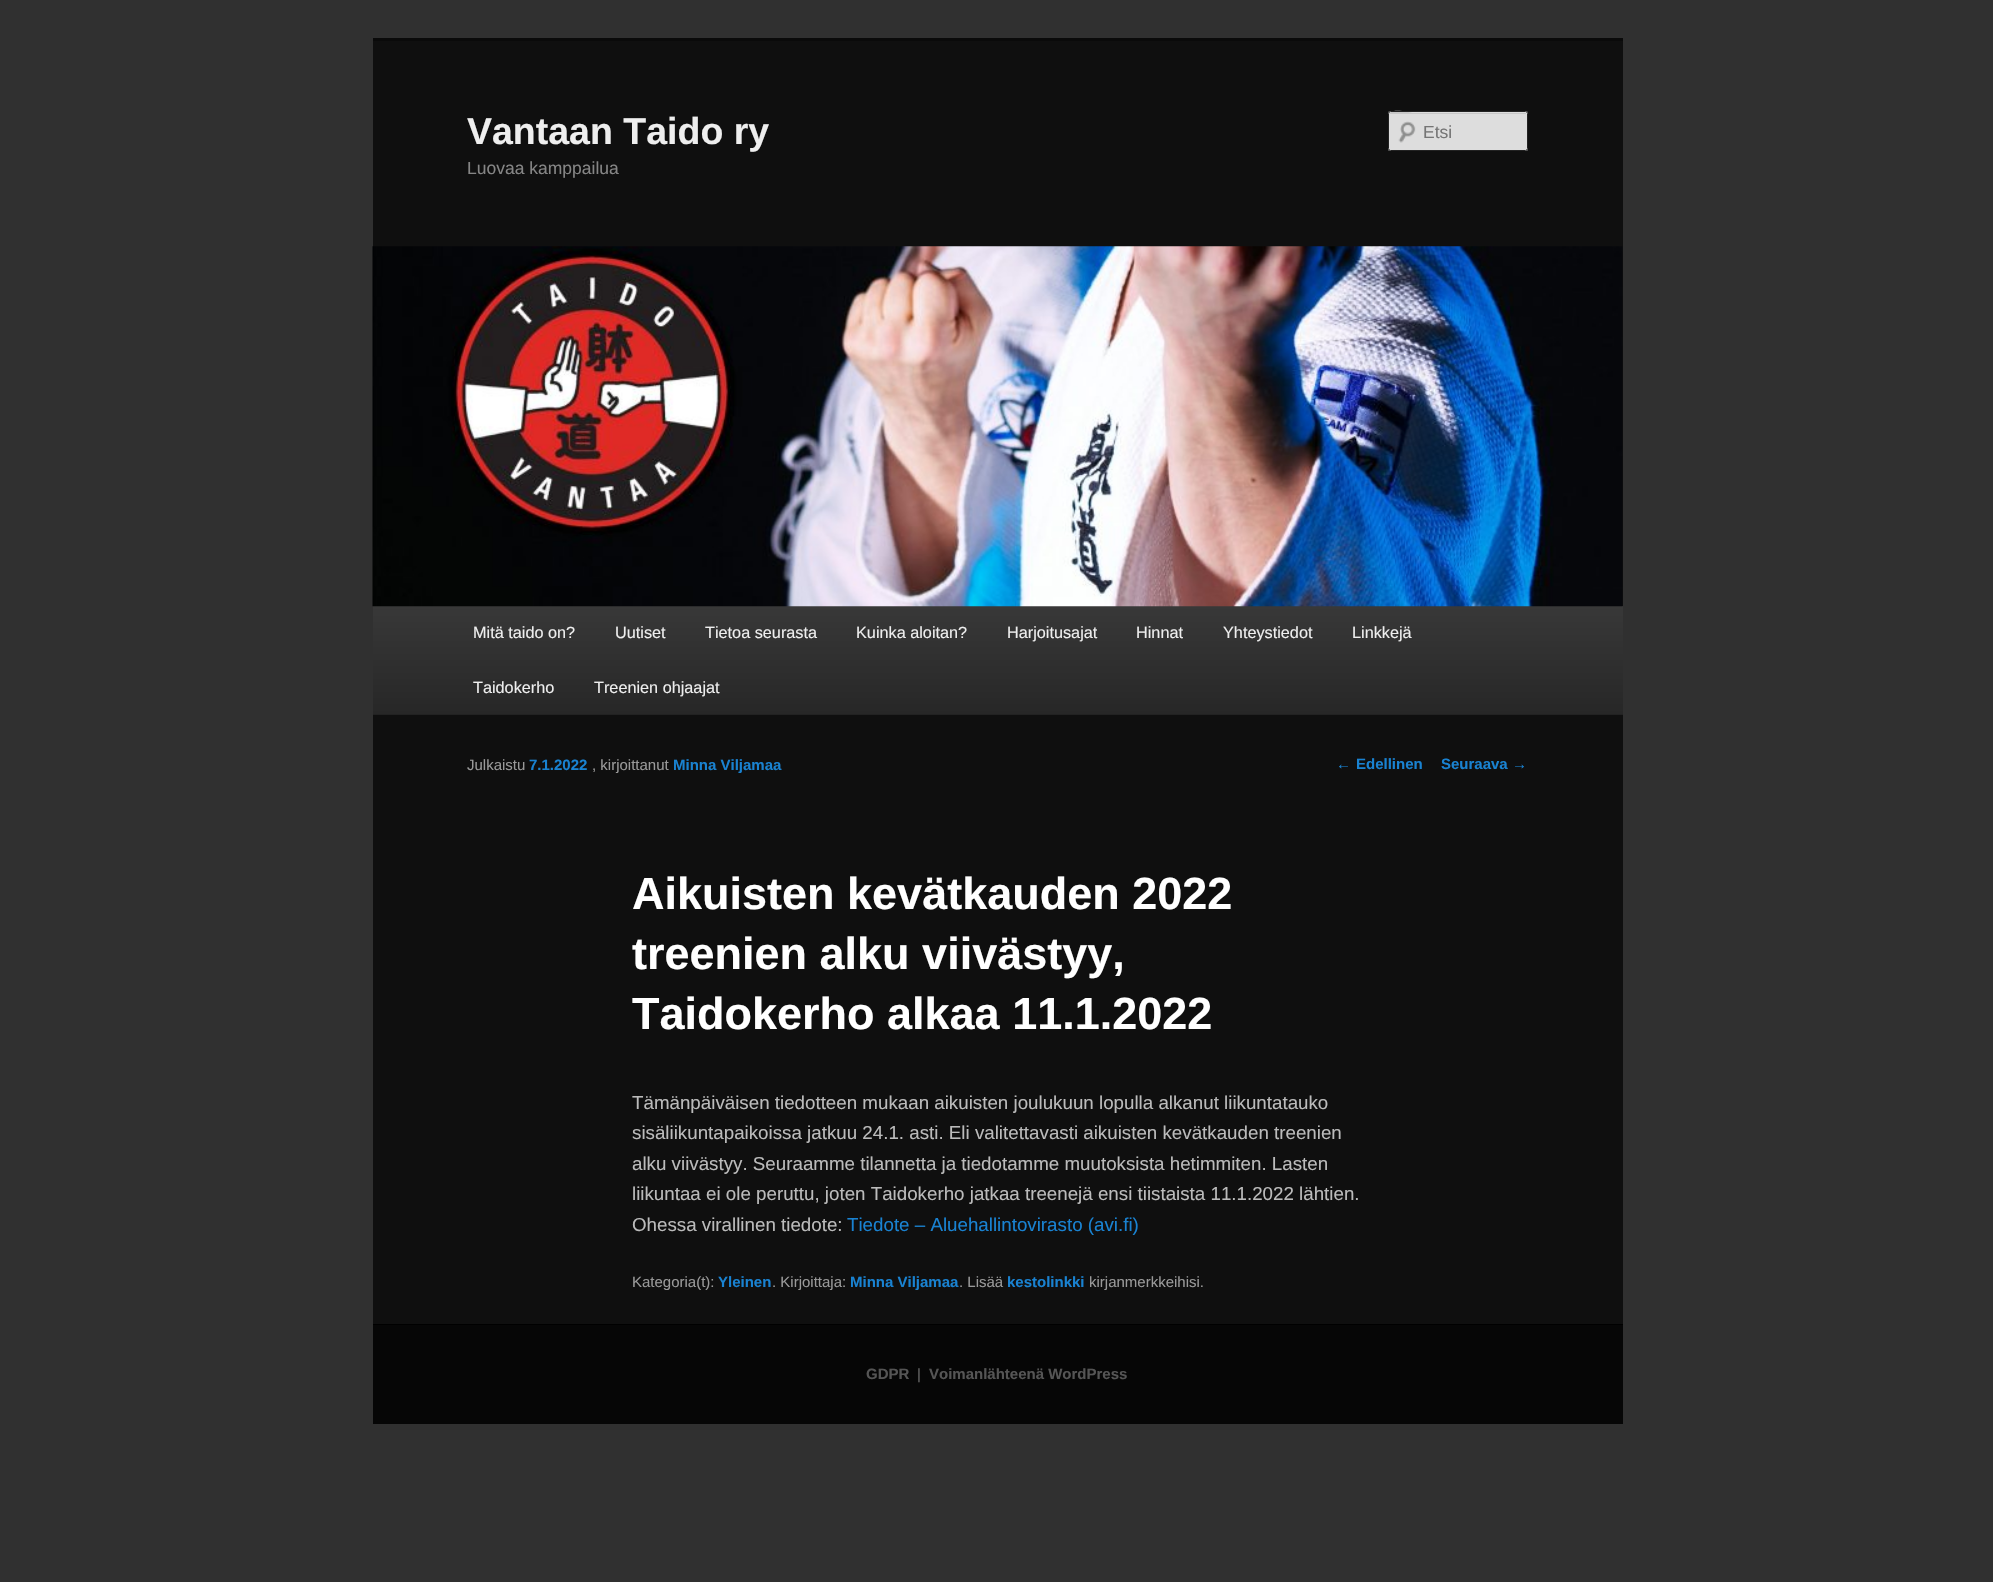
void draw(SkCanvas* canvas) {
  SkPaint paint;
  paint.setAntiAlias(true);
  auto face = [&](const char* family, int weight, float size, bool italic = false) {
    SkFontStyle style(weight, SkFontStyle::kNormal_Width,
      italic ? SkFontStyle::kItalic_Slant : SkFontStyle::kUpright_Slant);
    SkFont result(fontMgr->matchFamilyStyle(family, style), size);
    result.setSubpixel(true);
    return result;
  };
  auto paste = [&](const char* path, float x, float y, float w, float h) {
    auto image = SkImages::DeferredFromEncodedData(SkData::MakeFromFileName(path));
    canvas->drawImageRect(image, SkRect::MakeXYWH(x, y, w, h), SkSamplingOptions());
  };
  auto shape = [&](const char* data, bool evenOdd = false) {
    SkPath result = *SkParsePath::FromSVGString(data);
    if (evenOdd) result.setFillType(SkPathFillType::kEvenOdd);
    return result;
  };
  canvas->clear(0xff303030);
  paint.setColor(0xff0f0f0f);
  canvas->drawRect(SkRect::MakeXYWH(373, 41, 1250, 1283), paint);
  paint.setColor(0xff0a0a0a);
  canvas->drawRect(SkRect::MakeXYWH(373, 38, 1250, 3), paint);
  paint.setColor(0xffdddddd);
  canvas->drawRoundRect(SkRect::MakeXYWH(1388, 111, 140, 40), 2.5f, 2.5f, paint);
  paste("img/1.png", 1398, 121, 18, 22);
  paint.setColor(0xffc7c7c7);
  canvas->drawPath(shape("M1390 114H1525C1526 114 1526 114 1526 115V113H1412C1412 113 1389 107 1389 115C1389 114 1389 114 1390 114Z"), paint);
  paint.setStroke(true);
  paint.setStrokeWidth(1);
  paint.setColor(0xff222222);
  canvas->drawRoundRect(SkRect::MakeXYWH(1388.5f, 111.5f, 139, 39), 2, 2, paint);
  paint.setStroke(false);
  {
    const SkColor colors[] = {0xff383838, 0xff272727};
    const float stops[] = {0, 1};
    const SkPoint ends[] = {{998, 606}, {998, 714}};
    paint.setShader(SkGradientShader::MakeLinear(ends, colors, stops, 2, SkTileMode::kClamp));
    paint.setAlpha(255);
  }
  canvas->drawRect(SkRect::MakeXYWH(373, 606, 1250, 108), paint);
  paste("img/2.png", 372, 246, 1251, 361);
  paint.setShader(nullptr);
  {
    const struct { float x, y, w, h; SkColor color; } items[] = {
      {373, 714, 1250, 1, 0xff222222},
      {373, 1325, 1250, 99, 0xff060606},
      {373, 1324, 1250, 1, 0xff000000},
    };
    for (auto [x, y, w, h, color] : items) {
      paint.setColor(color);
      canvas->drawRect(SkRect::MakeXYWH(x, y, w, h), paint);
    }
  }
  auto f0 = face("Liberation Sans", 700, 37.5f);
  paint.setColor(0xffeeeeee);
  canvas->drawString("Vantaan Taido ry", 467, 144, f0, paint);
  auto f1 = face("Liberation Sans", 400, 17.5f);
  paint.setColor(0xff858585);
  canvas->drawString("Luovaa kamppailua", 467, 174, f1, paint);
  paint.setColor(0xff757575);
  canvas->drawString("Etsi", 1423, 138, f1, paint);
  auto f2 = face("Liberation Sans", 400, 16.25f);
  paint.setColor(0xffeeeeee);
  {
    const struct { const char* s; float x, y; } items[] = {
      {"Mitä taido on?", 473, 638},
      {"Uutiset", 615, 638},
      {"Tietoa seurasta", 705, 638},
      {"Kuinka aloitan?", 856, 638},
      {"Harjoitusajat", 1007, 638},
      {"Hinnat", 1136, 638},
      {"Yhteystiedot", 1223, 638},
      {"Linkkejä", 1352, 638},
      {"Taidokerho", 473, 693},
      {"Treenien ohjaajat", 594, 693},
    };
    for (auto [s, x, y] : items) {
      canvas->drawString(s, x, y, f2, paint);
    }
  }
  auto f3 = face("Liberation Sans", 400, 15);
  paint.setColor(0xff999999);
  canvas->drawString("Julkaistu", 467, 770, f3, paint);
  auto f4 = face("Liberation Sans", 700, 15);
  paint.setColor(0xff1982d1);
  canvas->drawString("7.1.2022", 529, 770, f4, paint);
  paint.setColor(0xff999999);
  canvas->drawString(", kirjoittanut", 592, 770, f3, paint);
  paint.setColor(0xff1982d1);
  canvas->drawString("Minna Viljamaa", 673, 770, f4, paint);
  auto f5 = face("Liberation Sans", 700, 45);
  paint.setColor(0xffffffff);
  {
    const struct { const char* s; float x, y; } items[] = {
      {"Aikuisten kevätkauden 2022", 632, 909},
      {"treenien alku viivästyy,", 632, 969},
      {"Taidokerho alkaa 11.1.2022", 632, 1029},
    };
    for (auto [s, x, y] : items) {
      canvas->drawString(s, x, y, f5, paint);
    }
  }
  auto f6 = face("Liberation Sans", 400, 18.75f);
  paint.setColor(0xffbbbbbb);
  {
    const struct { const char* s; float x, y; } items[] = {
      {"Tämänpäiväisen tiedotteen mukaan aikuisten joulukuun lopulla alkanut liikuntatauko", 632, 1109},
      {"sisäliikuntapaikoissa jatkuu 24.1. asti. Eli valitettavasti aikuisten kevätkauden treenien", 632, 1139},
      {"alku viivästyy. Seuraamme tilannetta ja tiedotamme muutoksista hetimmiten. Lasten", 632, 1170},
      {"liikuntaa ei ole peruttu, joten Taidokerho jatkaa treenejä ensi tiistaista 11.1.2022 lähtien.", 632, 1200},
      {"Ohessa virallinen tiedote:", 632, 1231},
    };
    for (auto [s, x, y] : items) {
      canvas->drawString(s, x, y, f6, paint);
    }
  }
  paint.setColor(0xff1982d1);
  canvas->drawString("Tiedote – Aluehallintovirasto (avi.fi)", 847, 1231, f6, paint);
  paint.setColor(0xff999999);
  canvas->drawString("Kategoria(t):", 632, 1287, f3, paint);
  paint.setColor(0xff1982d1);
  canvas->drawString("Yleinen", 718, 1287, f4, paint);
  paint.setColor(0xff999999);
  canvas->drawString(". Kirjoittaja:", 772, 1287, f3, paint);
  paint.setColor(0xff1982d1);
  canvas->drawString("Minna Viljamaa", 850, 1287, f4, paint);
  paint.setColor(0xff999999);
  canvas->drawString(". Lisää", 959, 1287, f3, paint);
  paint.setColor(0xff1982d1);
  canvas->drawString("kestolinkki", 1007, 1287, f4, paint);
  paint.setColor(0xff999999);
  canvas->drawString("kirjanmerkkeihisi.", 1089, 1287, f3, paint);
  paint.setColor(0xff1982d1);
  canvas->drawString("←", 1336, 769, f3, paint);
  canvas->drawString("Edellinen", 1356, 769, f4, paint);
  canvas->drawString("Seuraava", 1441, 769, f4, paint);
  canvas->drawString("→", 1512, 769, f3, paint);
  paint.setColor(0xff555555);
  canvas->drawString("GDPR", 866, 1379, f4, paint);
  paint.setColor(0xff666666);
  canvas->drawString("|", 917, 1379, f3, paint);
  paint.setColor(0xff555555);
  canvas->drawString("Voimanlähteenä WordPress", 929, 1379, f4, paint);
}
